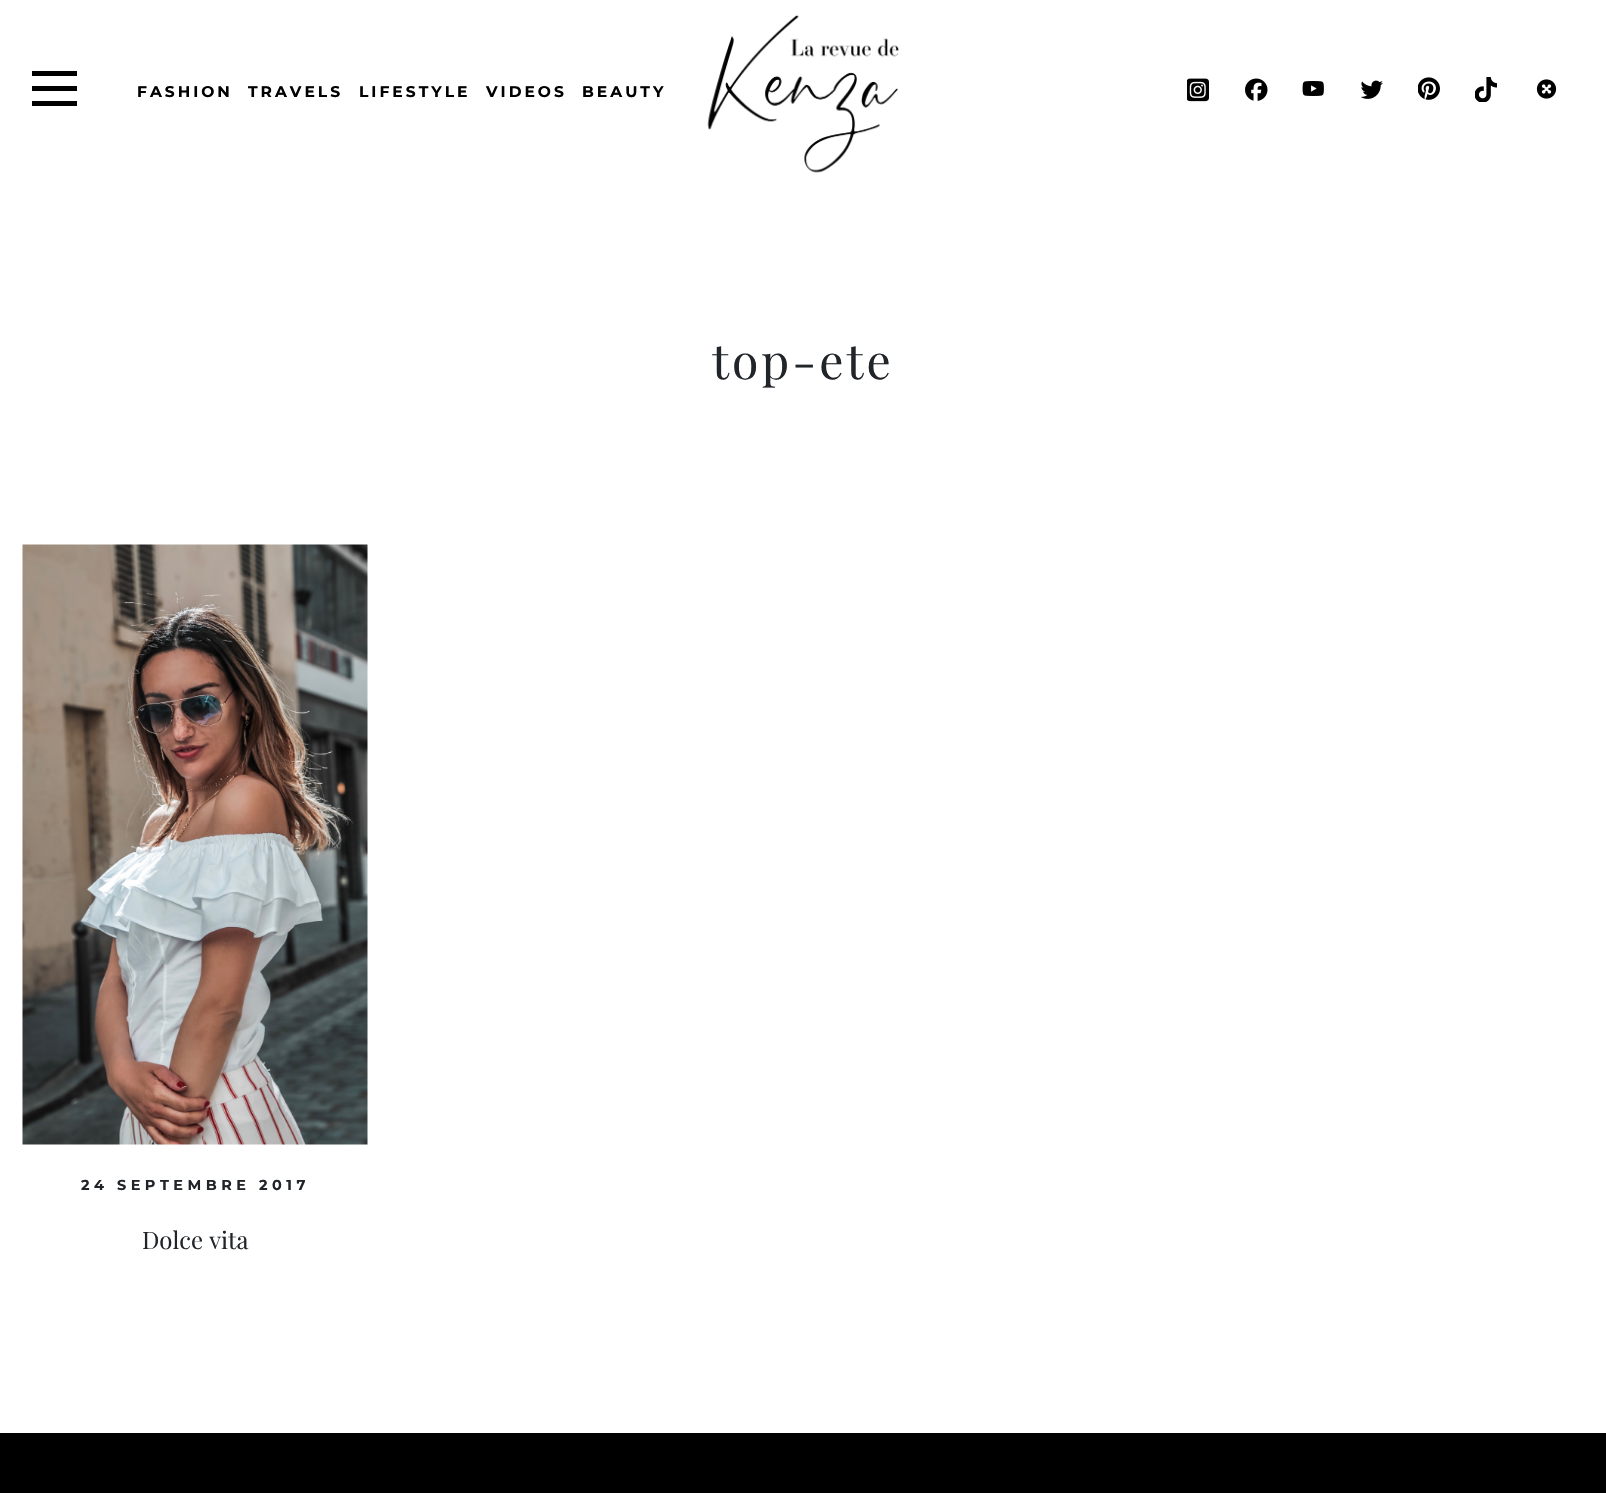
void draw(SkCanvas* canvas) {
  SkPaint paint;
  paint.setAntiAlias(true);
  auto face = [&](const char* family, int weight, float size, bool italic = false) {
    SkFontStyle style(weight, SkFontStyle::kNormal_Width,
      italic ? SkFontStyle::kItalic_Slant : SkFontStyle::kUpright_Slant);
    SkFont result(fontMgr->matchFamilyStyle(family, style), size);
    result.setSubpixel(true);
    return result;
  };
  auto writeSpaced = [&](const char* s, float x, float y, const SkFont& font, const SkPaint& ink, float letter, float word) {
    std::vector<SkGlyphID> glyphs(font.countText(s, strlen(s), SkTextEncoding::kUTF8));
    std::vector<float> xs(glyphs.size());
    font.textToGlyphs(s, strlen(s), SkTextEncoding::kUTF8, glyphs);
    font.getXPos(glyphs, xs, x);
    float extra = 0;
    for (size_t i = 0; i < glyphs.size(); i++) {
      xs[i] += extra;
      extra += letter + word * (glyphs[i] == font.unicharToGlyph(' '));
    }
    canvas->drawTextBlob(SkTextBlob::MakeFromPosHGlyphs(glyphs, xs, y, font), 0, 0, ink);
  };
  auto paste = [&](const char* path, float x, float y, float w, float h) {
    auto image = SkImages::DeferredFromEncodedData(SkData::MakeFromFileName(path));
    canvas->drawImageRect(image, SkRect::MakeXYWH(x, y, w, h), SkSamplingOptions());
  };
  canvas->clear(0xffffffff);
  {
    const struct { float x, y, w, h; SkColor color; } items[] = {
      {32, 86, 45, 5, 0xff000000},
      {32, 71, 45, 5, 0xff000000},
      {32, 101, 45, 5, 0xff000000},
    };
    for (auto [x, y, w, h, color] : items) {
      paint.setColor(color);
      canvas->drawRect(SkRect::MakeXYWH(x, y, w, h), paint);
    }
  }
  paste("img/1.png", 707, 15, 192, 158);
  paste("img/2.png", 1187, 78, 22, 24);
  paste("img/3.png", 1245, 78, 23, 23);
  paste("img/4.png", 1302, 81, 22, 15);
  paste("img/5.png", 1361, 80, 22, 19);
  paste("img/6.png", 1418, 77, 22, 23);
  paste("img/7.png", 1475, 77, 22, 25);
  paste("img/8.png", 1536, 79, 21, 20);
  paste("img/9.png", 22, 544, 346, 601);
  canvas->drawRect(SkRect::MakeXYWH(0, 1433, 1606, 60), paint);
  auto f0 = face("Montserrat", 700, 15.5f);
  {
    const struct { const char* s; float x, y; } items[] = {
      {"FASHION", 137, 97},
      {"TRAVELS", 248, 97},
      {"LIFESTYLE", 359, 97},
      {"VIDEOS", 486, 97},
      {"BEAUTY", 582, 97},
    };
    for (auto [s, x, y] : items) {
      writeSpaced(s, x, y, f0, paint, 3, 0);
    }
  }
  auto f1 = face("Playfair Display", 400, 48);
  paint.setColor(0xff212529);
  writeSpaced("top-ete", 712, 379, f1, paint, 3, 0);
  auto f2 = face("Montserrat", 700, 14.4f);
  writeSpaced("24 SEPTEMBRE 2017", 81, 1190, f2, paint, 4.5f, 0);
  auto f3 = face("Playfair Display", 400, 24);
  canvas->drawString("Dolce vita", 142, 1249, f3, paint);
}
